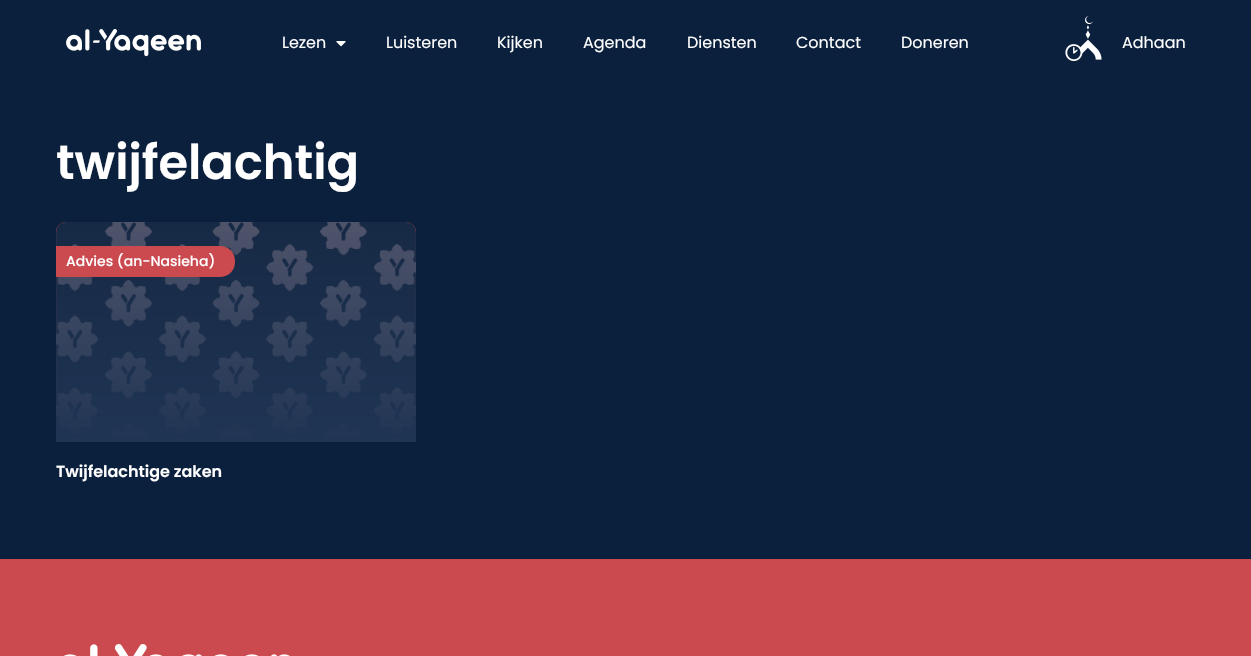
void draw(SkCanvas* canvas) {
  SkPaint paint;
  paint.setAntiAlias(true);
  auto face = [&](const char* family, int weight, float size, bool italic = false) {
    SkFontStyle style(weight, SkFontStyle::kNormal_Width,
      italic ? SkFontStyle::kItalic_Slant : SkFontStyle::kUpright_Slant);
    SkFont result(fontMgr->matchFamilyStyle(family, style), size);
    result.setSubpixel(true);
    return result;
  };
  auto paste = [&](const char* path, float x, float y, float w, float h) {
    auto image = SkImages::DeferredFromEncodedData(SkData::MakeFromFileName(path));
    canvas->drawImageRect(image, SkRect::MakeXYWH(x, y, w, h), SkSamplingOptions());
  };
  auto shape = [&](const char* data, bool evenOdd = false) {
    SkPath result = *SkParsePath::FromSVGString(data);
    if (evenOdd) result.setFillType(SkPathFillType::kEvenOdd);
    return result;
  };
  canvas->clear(0xff0b203d);
  paste("img/1.png", 66, 29, 135, 28);
  paste("img/2.png", 336, 41, 10, 6);
  paste("img/3.png", 1065, 16, 37, 45);
  paint.setColor(0xffca4a4f);
  canvas->drawPath(shape("M66 222H406C411.5 222 416 226.5 416 232V442H56V232C56 226.5 60.5 222 66 222Z"), paint);
  paste("img/4.png", 56, 222, 360, 219);
  {
    const SkColor colors[] = {0xff1f3453, 0x001f3453};
    const float stops[] = {0, 1};
    const SkPoint ends[] = {{236, 442}, {236, 222}};
    paint.setShader(SkGradientShader::MakeLinear(ends, colors, stops, 2, SkTileMode::kClamp));
    paint.setAlpha(255);
  }
  canvas->drawRect(SkRect::MakeXYWH(56, 232, 360, 210), paint);
  paint.setShader(nullptr);
  paint.setColor(0xffca4a4f);
  canvas->drawPath(shape("M56 246H220C228.5 246 235 252.5 235 261V262C235 270.5 228.5 277 220 277H56Z"), paint);
  canvas->drawRect(SkRect::MakeXYWH(0, 559, 1251, 97), paint);
  paste("img/5.png", 63, 644, 227, 12);
  auto f0 = face("Poppins", 400, 16);
  paint.setColor(0xffffffff);
  {
    const struct { const char* s; float x, y; } items[] = {
      {"Lezen", 282, 48},
      {"Luisteren", 386, 48},
      {"Kijken", 497, 48},
      {"Agenda", 583, 48},
      {"Diensten", 687, 48},
      {"Contact", 796, 48},
      {"Doneren", 901, 48},
      {"Adhaan", 1122, 48},
    };
    for (auto [s, x, y] : items) {
      canvas->drawString(s, x, y, f0, paint);
    }
  }
  auto f1 = face("Poppins", 600, 48);
  canvas->drawString("twijfelachtig", 56, 179, f1, paint);
  auto f2 = face("Poppins", 500, 14);
  canvas->drawString("Advies (an-Nasieha)", 66, 266, f2, paint);
  auto f3 = face("Poppins", 600, 16);
  canvas->drawString("Twijfelachtige zaken", 56, 477, f3, paint);
}
